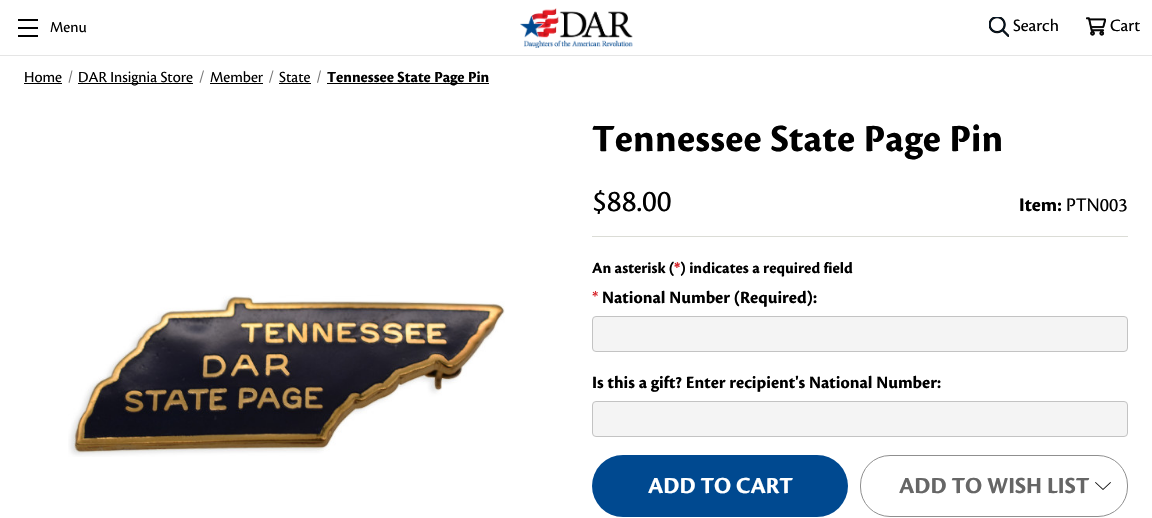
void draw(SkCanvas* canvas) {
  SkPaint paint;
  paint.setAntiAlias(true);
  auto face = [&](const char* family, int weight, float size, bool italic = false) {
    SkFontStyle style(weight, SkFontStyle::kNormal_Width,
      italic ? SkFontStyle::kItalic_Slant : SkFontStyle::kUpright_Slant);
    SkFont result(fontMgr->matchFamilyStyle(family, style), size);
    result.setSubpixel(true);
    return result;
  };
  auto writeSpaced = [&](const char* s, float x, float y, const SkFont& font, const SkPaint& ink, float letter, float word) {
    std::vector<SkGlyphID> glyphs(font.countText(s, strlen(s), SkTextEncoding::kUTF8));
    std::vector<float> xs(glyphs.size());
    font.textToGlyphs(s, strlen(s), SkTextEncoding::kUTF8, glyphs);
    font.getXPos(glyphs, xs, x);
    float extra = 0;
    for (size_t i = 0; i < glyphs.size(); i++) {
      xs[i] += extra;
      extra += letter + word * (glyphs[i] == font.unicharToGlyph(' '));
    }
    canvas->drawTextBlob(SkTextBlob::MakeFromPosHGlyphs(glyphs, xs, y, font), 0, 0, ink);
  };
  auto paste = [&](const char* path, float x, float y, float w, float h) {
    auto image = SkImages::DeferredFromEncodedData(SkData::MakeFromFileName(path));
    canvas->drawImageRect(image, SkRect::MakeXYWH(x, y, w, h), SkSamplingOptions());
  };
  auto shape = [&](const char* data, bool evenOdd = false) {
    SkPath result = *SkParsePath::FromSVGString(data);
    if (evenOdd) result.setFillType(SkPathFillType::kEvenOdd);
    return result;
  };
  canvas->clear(0xffffffff);
  {
    const struct { float x, y, w, h; SkColor color; } items[] = {
      {0, 55, 1152, 1, 0xffe5e5e5},
      {18, 27, 20, 2, 0xff000000},
      {18, 19, 20, 2, 0xff000000},
      {18, 35, 20, 2, 0xff000000},
    };
    for (auto [x, y, w, h, color] : items) {
      paint.setColor(color);
      canvas->drawRect(SkRect::MakeXYWH(x, y, w, h), paint);
    }
  }
  paste("img/1.png", 520, 8, 113, 40);
  paste("img/2.png", 989, 17, 20, 20);
  paste("img/3.png", 1086, 17, 20, 19);
  canvas->drawRect(SkRect::MakeXYWH(24, 83, 38, 1), paint);
  paint.setColor(0xff757575);
  canvas->drawPath(shape("M71.5 70.5H72.5L69.5 83L68.5 82.5Z"), paint);
  paint.setColor(0xff000000);
  canvas->drawRect(SkRect::MakeXYWH(78, 83, 115, 1), paint);
  paint.setColor(0xff757575);
  canvas->drawPath(shape("M203 70.5H204L200.5 83L199.5 82.5Z"), paint);
  {
    const struct { float x, y, w, h; SkColor color; } items[] = {
      {210, 83, 53, 1, 0xff000000},
      {279, 83, 32, 1, 0xff000000},
      {327, 83, 162, 1, 0xff000000},
      {592, 236, 536, 1, 0xffdbdcd6},
    };
    for (auto [x, y, w, h, color] : items) {
      paint.setColor(color);
      canvas->drawRect(SkRect::MakeXYWH(x, y, w, h), paint);
    }
  }
  paste("img/4.png", 68, 295, 437, 162);
  paint.setColor(0xfff4f4f4);
  canvas->drawRoundRect(SkRect::MakeXYWH(592.5f, 316.5f, 535, 35), 3.5f, 3.5f, paint);
  paint.setStroke(true);
  paint.setStrokeWidth(1);
  paint.setColor(0xffc3c3c3);
  canvas->drawRoundRect(SkRect::MakeXYWH(592.5f, 316.5f, 535, 35), 3.5f, 3.5f, paint);
  paint.setStroke(false);
  paint.setColor(0xfff4f4f4);
  canvas->drawRoundRect(SkRect::MakeXYWH(592.5f, 401.5f, 535, 35), 3.5f, 3.5f, paint);
  paint.setStroke(true);
  paint.setColor(0xffc3c3c3);
  canvas->drawRoundRect(SkRect::MakeXYWH(592.5f, 401.5f, 535, 35), 3.5f, 3.5f, paint);
  paint.setStroke(false);
  paint.setColor(0xff004990);
  canvas->drawRoundRect(SkRect::MakeXYWH(592, 455, 256, 62), 31, 31, paint);
  paint.setStroke(true);
  paint.setColor(0xff8f8f8f);
  canvas->drawRoundRect(SkRect::MakeXYWH(860.5f, 455.5f, 267, 61), 29.5f, 29.5f, paint);
  paste("img/5.png", 1095, 482, 16, 8);
  auto f0 = face("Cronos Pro", 400, 16);
  paint.setStroke(false);
  paint.setColor(0xff000000);
  canvas->drawString("Menu", 50, 32, f0, paint);
  auto f1 = face("Cronos Pro", 400, 18);
  canvas->drawString("Search", 1013, 31, f1, paint);
  canvas->drawString("Cart", 1110, 31, f1, paint);
  {
    const struct { const char* s; float x, y; } items[] = {
      {"Home", 24, 82},
      {"DAR Insignia Store", 78, 82},
      {"Member", 210, 82},
      {"State", 279, 82},
    };
    for (auto [s, x, y] : items) {
      canvas->drawString(s, x, y, f0, paint);
    }
  }
  paint.setColor(0xff757575);
  canvas->drawPath(shape("M272.5 70.5H273.5L270 83L269 82.5ZM320 70.5H321L318 83L317 82.5Z"), paint);
  auto f2 = face("Cronos Pro", 700, 16);
  paint.setColor(0xff000000);
  canvas->drawString("Tennessee State Page Pin", 327, 82, f2, paint);
  auto f3 = face("Cronos Pro", 700, 40);
  writeSpaced("Tennessee State Page Pin", 592, 151, f3, paint, 0.25f, 0);
  auto f4 = face("Cronos Pro", 400, 32);
  canvas->drawString("$88.00", 592, 211, f4, paint);
  auto f5 = face("Cronos Pro", 700, 20);
  canvas->drawString("Item:", 1019, 211, f5, paint);
  auto f6 = face("Cronos Pro", 400, 20);
  canvas->drawString("PTN003", 1066, 211, f6, paint);
  auto f7 = face("Cronos Pro", 700, 16.25f);
  canvas->drawString("An asterisk (", 592, 273, f7, paint);
  paint.setColor(0xffd61e24);
  canvas->drawString("*", 674, 273, f7, paint);
  paint.setColor(0xff000000);
  canvas->drawString(") indicates a required field", 680, 273, f7, paint);
  paint.setColor(0xffd61e24);
  canvas->drawString("*", 592, 303, f1, paint);
  auto f8 = face("Cronos Pro", 700, 18);
  paint.setColor(0xff000000);
  canvas->drawString("National Number (Required):", 602, 303, f8, paint);
  canvas->drawString("Is this a gift? Enter recipient's National Number:", 592, 388, f8, paint);
  auto f9 = face("Cronos Pro", 700, 24);
  paint.setColor(0xffffffff);
  canvas->drawString("ADD TO CART", 648, 493, f9, paint);
  paint.setColor(0xff666666);
  canvas->drawString("ADD TO WISH LIST", 899, 493, f9, paint);
}
